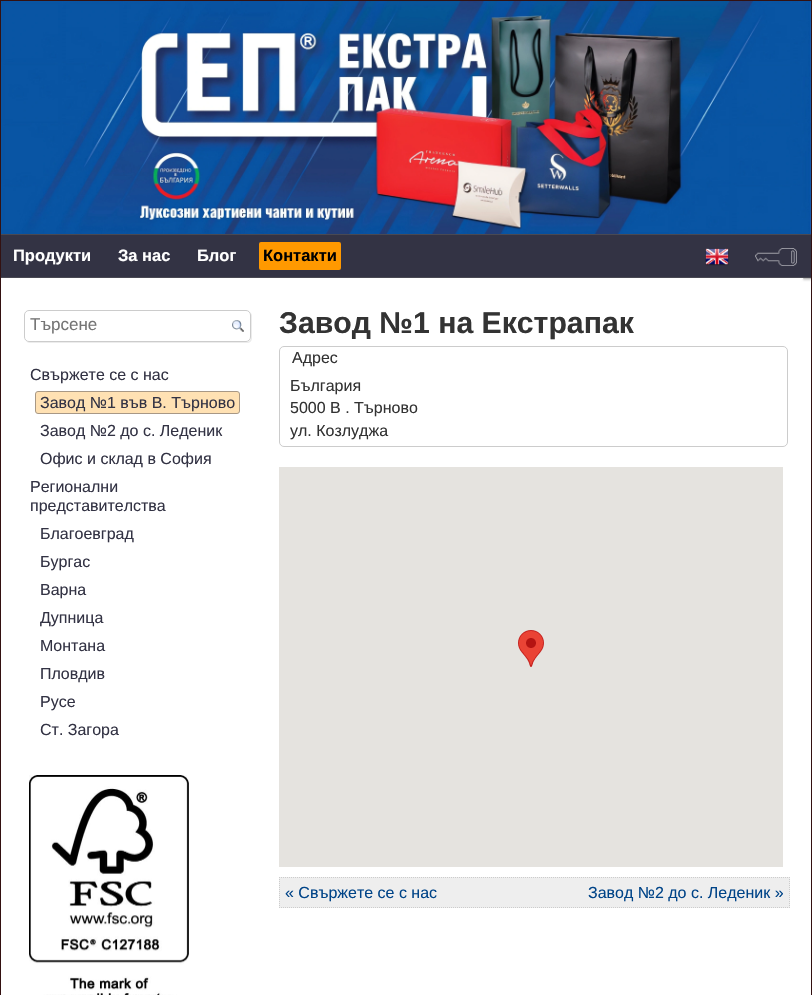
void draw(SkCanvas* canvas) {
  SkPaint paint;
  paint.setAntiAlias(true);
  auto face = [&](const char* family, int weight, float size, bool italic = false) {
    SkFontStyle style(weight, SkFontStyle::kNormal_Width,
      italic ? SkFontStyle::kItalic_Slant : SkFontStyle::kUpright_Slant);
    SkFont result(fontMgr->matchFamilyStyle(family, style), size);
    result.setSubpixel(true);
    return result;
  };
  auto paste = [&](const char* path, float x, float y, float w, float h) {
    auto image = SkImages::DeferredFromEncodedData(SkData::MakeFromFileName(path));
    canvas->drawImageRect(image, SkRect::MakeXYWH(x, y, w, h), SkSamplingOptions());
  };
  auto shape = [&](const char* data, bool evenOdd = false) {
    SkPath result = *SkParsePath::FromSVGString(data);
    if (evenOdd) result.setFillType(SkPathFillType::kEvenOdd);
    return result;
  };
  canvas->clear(0xff331111);
  paste("img/1.png", 1, 1, 810, 233);
  {
    const struct { float x, y, w, h; SkColor color; } items[] = {
      {1, 235, 810, 42, 0xff333344},
      {1, 234, 810, 1, 0xff494953},
      {1, 277, 810, 1, 0xff494953},
    };
    for (auto [x, y, w, h, color] : items) {
      paint.setColor(color);
      canvas->drawRect(SkRect::MakeXYWH(x, y, w, h), paint);
    }
  }
  paint.setColor(0xffff9900);
  canvas->drawRoundRect(SkRect::MakeXYWH(259, 242, 82, 28), 2, 2, paint);
  paste("img/2.png", 705, 248, 24, 18);
  paste("img/3.png", 755, 248, 42, 18);
  paint.setColor(0xffffffff);
  canvas->drawRect(SkRect::MakeXYWH(1, 278, 810, 717), paint);
  paint.setColor(0x4d000000);
  paint.setMaskFilter(SkMaskFilter::MakeBlur(kNormal_SkBlurStyle, 1));
  canvas->drawRoundRect(SkRect::MakeXYWH(803, 279, 8, 1), 1, 1, paint);
  paint.setMaskFilter(nullptr);
  paint.setColor(0xffbbbbbb);
  canvas->drawRect(SkRect::MakeXYWH(804, 278, 7, 1), paint);
  canvas->drawCircle(803.5f, 278.5f, 0.5f, paint);
  paint.setColor(0xffececec);
  canvas->drawPath(shape("M26 341C27 342 28 343 30 343H247C250 343 252 341 252 338V316C252 314 251 313 250 312C251 313 251 314 251 315V337C251 340 249 342 246 342H29C28 342 27 342 26 341Z"), paint);
  paint.setStroke(true);
  paint.setStrokeWidth(1);
  paint.setColor(0xffcccccc);
  canvas->drawRoundRect(SkRect::MakeXYWH(24.5f, 310.5f, 226, 31), 4.5f, 4.5f, paint);
  paste("img/4.png", 232, 320, 12, 12);
  paint.setStroke(false);
  paint.setColor(0xffffe1b3);
  canvas->drawRoundRect(SkRect::MakeXYWH(35.5f, 391.5f, 204, 22), 2.5f, 2.5f, paint);
  paint.setStroke(true);
  paint.setColor(0xffa89885);
  canvas->drawRoundRect(SkRect::MakeXYWH(35.5f, 391.5f, 204, 22), 2.5f, 2.5f, paint);
  paste("img/5.png", 29, 775, 160, 220);
  paint.setColor(0xffcccccc);
  canvas->drawRoundRect(SkRect::MakeXYWH(279.5f, 346.5f, 508, 100), 4.5f, 4.5f, paint);
  paint.setStroke(false);
  paint.setColor(0xffe5e3df);
  canvas->drawRect(SkRect::MakeXYWH(279, 467, 504, 400), paint);
  paste("img/6.png", 518, 630, 26, 37);
  paint.setColor(0xffeeeeee);
  canvas->drawRect(SkRect::MakeXYWH(279, 877, 511, 31), paint);
  paint.setStroke(true);
  paint.setColor(0xffcccccc);
  paint.setPathEffect(SkDashPathEffect::Make({{1, 1}}, 0));
  canvas->drawPath(shape("M279 877.5H790"), paint);
  paint.setPathEffect(nullptr);
  paint.setPathEffect(SkDashPathEffect::Make({{1, 1}}, 0));
  canvas->drawPath(shape("M789.5 877V908"), paint);
  paint.setPathEffect(nullptr);
  paint.setPathEffect(SkDashPathEffect::Make({{1, 1}}, 0));
  canvas->drawPath(shape("M279 907.5H790"), paint);
  paint.setPathEffect(nullptr);
  paint.setPathEffect(SkDashPathEffect::Make({{1, 1}}, 0));
  canvas->drawPath(shape("M279.5 877V908"), paint);
  paint.setPathEffect(nullptr);
  auto f0 = face("Liberation Sans", 700, 16.5f);
  paint.setStroke(false);
  paint.setColor(0xffffffff);
  {
    const struct { const char* s; float x, y; } items[] = {
      {"Продукти", 13, 261},
      {"За нас", 118, 261},
      {"Блог", 197, 261},
    };
    for (auto [s, x, y] : items) {
      canvas->drawString(s, x, y, f0, paint);
    }
  }
  paint.setColor(0xff000000);
  canvas->drawString("Контакти", 263, 261, f0, paint);
  auto f1 = face("Liberation Sans", 400, 17);
  paint.setColor(0xff757575);
  canvas->drawString("Търсене", 30, 330, f1, paint);
  auto f2 = face("Liberation Sans", 400, 16);
  paint.setColor(0xff333344);
  {
    const struct { const char* s; float x, y; } items[] = {
      {"Свържете се с нас", 30, 380},
      {"Завод №1 във В. Търново", 40, 408},
      {"Завод №2 до с. Леденик", 40, 436},
      {"Офис и склад в София", 40, 464},
      {"Регионални", 30, 492},
      {"представителства", 30, 511},
      {"Благоевград", 40, 539},
      {"Бургас", 40, 567},
      {"Варна", 40, 595},
      {"Дупница", 40, 623},
      {"Монтана", 40, 651},
      {"Пловдив", 40, 679},
      {"Русе", 40, 707},
      {"Ст. Загора", 40, 735},
    };
    for (auto [s, x, y] : items) {
      canvas->drawString(s, x, y, f2, paint);
    }
  }
  auto f3 = face("Liberation Sans", 700, 30.2f);
  paint.setColor(0xff333333);
  canvas->drawString("Завод №1 на Екстрапак", 279, 333, f3, paint);
  {
    const struct { const char* s; float x, y; } items[] = {
      {"Адрес", 292, 363},
      {"България", 290, 391},
      {"5000 В . Търново", 290, 413},
      {"ул. Козлуджа", 290, 436},
    };
    for (auto [s, x, y] : items) {
      canvas->drawString(s, x, y, f2, paint);
    }
  }
  paint.setColor(0xff004488);
  canvas->drawString("« Свържете се с нас", 285, 898, f2, paint);
  canvas->drawString("Завод №2 до с. Леденик »", 588, 898, f2, paint);
}
